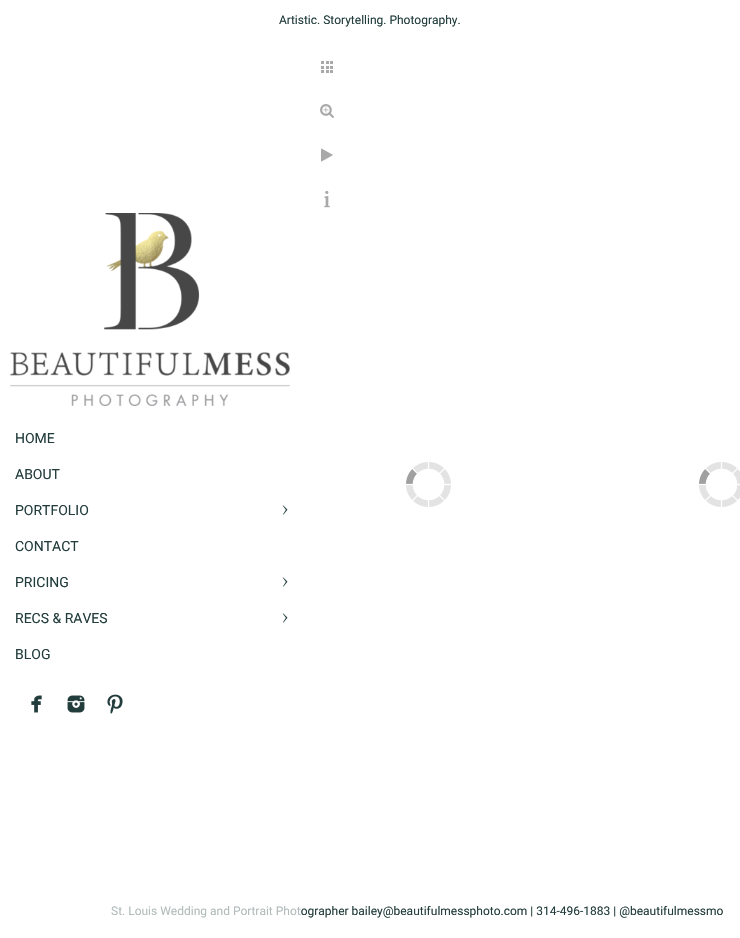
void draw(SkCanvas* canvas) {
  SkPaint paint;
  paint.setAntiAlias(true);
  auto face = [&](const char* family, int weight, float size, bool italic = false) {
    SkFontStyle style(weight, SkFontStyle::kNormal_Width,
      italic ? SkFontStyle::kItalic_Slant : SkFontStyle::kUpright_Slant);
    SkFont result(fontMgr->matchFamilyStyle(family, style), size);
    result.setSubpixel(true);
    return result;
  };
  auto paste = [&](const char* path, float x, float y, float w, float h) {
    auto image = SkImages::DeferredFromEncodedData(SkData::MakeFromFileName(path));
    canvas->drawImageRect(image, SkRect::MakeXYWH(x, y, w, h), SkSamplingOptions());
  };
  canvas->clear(0xffffffff);
  paste("img/1.png", 321, 61, 12, 12);
  paste("img/2.png", 320, 104, 14, 14);
  paste("img/3.png", 321, 148, 12, 14);
  paste("img/4.png", 324, 190, 6, 18);
  paste("img/5.png", 10, 213, 280, 193);
  paste("img/6.png", 282, 505, 6, 10);
  paste("img/6.png", 282, 577, 6, 10);
  paste("img/6.png", 282, 613, 6, 10);
  paste("img/7.png", 31, 695, 11, 18);
  paste("img/8.png", 67, 695, 18, 18);
  paste("img/9.png", 107, 694, 16, 20);
  paste("img/10.png", 406, 462, 45, 45);
  paste("img/11.png", 699, 462, 41, 45);
  auto f0 = face("Roboto", 400, 12);
  paint.setColor(0xff223d3c);
  canvas->drawString("Artistic. Storytelling. Photography.", 279, 24, f0, paint);
  auto f1 = face("Roboto", 400, 14);
  {
    const struct { const char* s; float x, y; } items[] = {
      {"HOME", 15, 443},
      {"ABOUT", 15, 479},
      {"PORTFOLIO", 15, 515},
      {"CONTACT", 15, 551},
      {"PRICING", 15, 587},
      {"RECS & RAVES", 15, 623},
      {"BLOG", 15, 659},
    };
    for (auto [s, x, y] : items) {
      canvas->drawString(s, x, y, f1, paint);
    }
  }
  canvas->drawString("St. Louis Wedding and Portrait Photographer bailey@beautifulmessphoto.com | 314-496-1883 | @beautifulmessmo", 111, 915, f0, paint);
  paint.setColor(0xa6ffffff);
  canvas->drawRect(SkRect::MakeXYWH(111, 906, 189, 12), paint);
}
